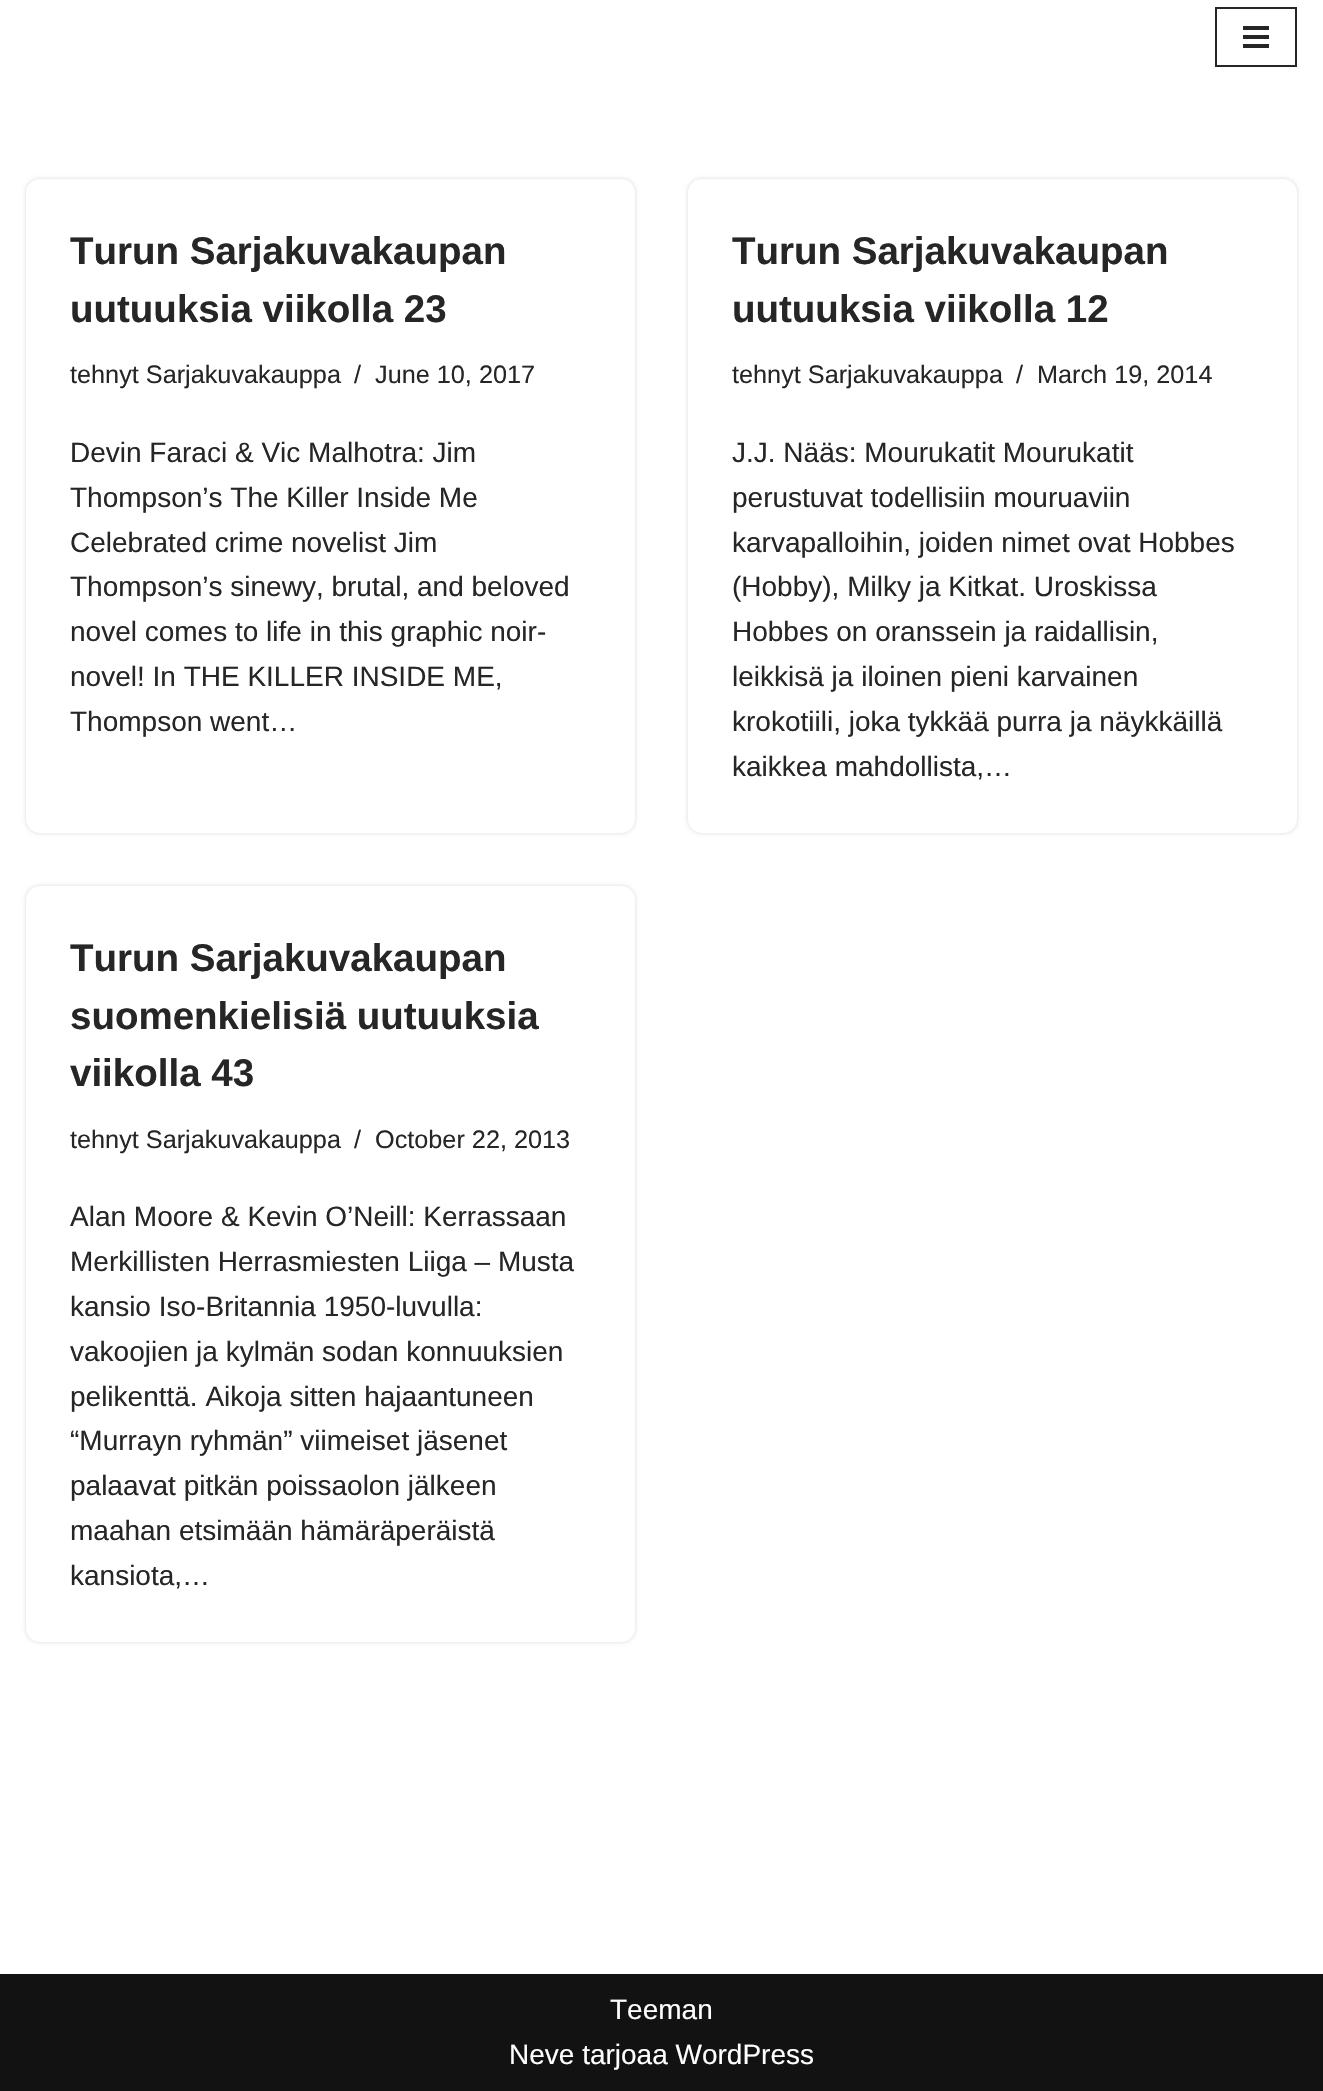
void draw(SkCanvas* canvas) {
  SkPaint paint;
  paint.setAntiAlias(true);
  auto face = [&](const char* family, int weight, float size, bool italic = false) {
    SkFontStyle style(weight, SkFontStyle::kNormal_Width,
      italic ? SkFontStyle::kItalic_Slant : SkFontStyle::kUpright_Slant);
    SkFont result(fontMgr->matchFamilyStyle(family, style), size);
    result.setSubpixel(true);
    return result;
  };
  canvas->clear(0xffffffff);
  paint.setStroke(true);
  paint.setStrokeWidth(2);
  paint.setColor(0xff272626);
  canvas->drawRect(SkRect::MakeXYWH(1216, 8, 80, 58), paint);
  paint.setStroke(false);
  {
    const struct { float x, y, w, h; SkColor color; } items[] = {
      {1243, 26, 26, 4, 0xff272626},
      {1243, 35, 26, 4, 0xff272626},
      {1243, 44, 26, 4, 0xff272626},
    };
    for (auto [x, y, w, h, color] : items) {
      paint.setColor(color);
      canvas->drawRect(SkRect::MakeXYWH(x, y, w, h), paint);
    }
  }
  paint.setColor(0x26000000);
  paint.setMaskFilter(SkMaskFilter::MakeBlur(kNormal_SkBlurStyle, 2));
  canvas->drawRoundRect(SkRect::MakeXYWH(26, 179, 609, 654), 14, 14, paint);
  paint.setMaskFilter(nullptr);
  paint.setColor(0xffffffff);
  canvas->drawRoundRect(SkRect::MakeXYWH(26, 179, 609, 654), 14, 14, paint);
  paint.setColor(0x26000000);
  paint.setMaskFilter(SkMaskFilter::MakeBlur(kNormal_SkBlurStyle, 2));
  canvas->drawRoundRect(SkRect::MakeXYWH(688, 179, 609, 654), 14, 14, paint);
  paint.setMaskFilter(nullptr);
  paint.setColor(0xffffffff);
  canvas->drawRoundRect(SkRect::MakeXYWH(688, 179, 609, 654), 14, 14, paint);
  paint.setColor(0x26000000);
  paint.setMaskFilter(SkMaskFilter::MakeBlur(kNormal_SkBlurStyle, 2));
  canvas->drawRoundRect(SkRect::MakeXYWH(26, 886, 609, 756), 14, 14, paint);
  paint.setMaskFilter(nullptr);
  paint.setColor(0xffffffff);
  canvas->drawRoundRect(SkRect::MakeXYWH(26, 886, 609, 756), 14, 14, paint);
  paint.setColor(0xff121212);
  canvas->drawRect(SkRect::MakeXYWH(0, 1974, 1323, 117), paint);
  auto f0 = face("Liberation Sans", 700, 38.5f);
  paint.setColor(0xff272626);
  canvas->drawString("Turun Sarjakuvakaupan", 70, 264, f0, paint);
  canvas->drawString("uutuuksia viikolla 23", 70, 322, f0, paint);
  auto f1 = face("Liberation Sans", 400, 25.25f);
  {
    const struct { const char* s; float x, y; } items[] = {
      {"tehnyt Sarjakuvakauppa", 70, 383},
      {"/", 354, 383},
      {"June 10, 2017", 375, 383},
    };
    for (auto [s, x, y] : items) {
      canvas->drawString(s, x, y, f1, paint);
    }
  }
  auto f2 = face("Liberation Sans", 400, 28);
  {
    const struct { const char* s; float x, y; } items[] = {
      {"Devin Faraci & Vic Malhotra: Jim", 70, 462},
      {"Thompson’s The Killer Inside Me", 70, 507},
      {"Celebrated crime novelist Jim", 70, 552},
      {"Thompson’s sinewy, brutal, and beloved", 70, 596},
      {"novel comes to life in this graphic noir-", 70, 641},
      {"novel! In THE KILLER INSIDE ME,", 70, 686},
      {"Thompson went…", 70, 731},
    };
    for (auto [s, x, y] : items) {
      canvas->drawString(s, x, y, f2, paint);
    }
  }
  canvas->drawString("Turun Sarjakuvakaupan", 732, 264, f0, paint);
  canvas->drawString("uutuuksia viikolla 12", 732, 322, f0, paint);
  {
    const struct { const char* s; float x, y; } items[] = {
      {"tehnyt Sarjakuvakauppa", 732, 383},
      {"/", 1016, 383},
      {"March 19, 2014", 1037, 383},
    };
    for (auto [s, x, y] : items) {
      canvas->drawString(s, x, y, f1, paint);
    }
  }
  {
    const struct { const char* s; float x, y; } items[] = {
      {"J.J. Nääs: Mourukatit Mourukatit", 732, 462},
      {"perustuvat todellisiin mouruaviin", 732, 507},
      {"karvapalloihin, joiden nimet ovat Hobbes", 732, 552},
      {"(Hobby), Milky ja Kitkat. Uroskissa", 732, 596},
      {"Hobbes on oranssein ja raidallisin,", 732, 641},
      {"leikkisä ja iloinen pieni karvainen", 732, 686},
      {"krokotiili, joka tykkää purra ja näykkäillä", 732, 731},
      {"kaikkea mahdollista,…", 732, 776},
    };
    for (auto [s, x, y] : items) {
      canvas->drawString(s, x, y, f2, paint);
    }
  }
  {
    const struct { const char* s; float x, y; } items[] = {
      {"Turun Sarjakuvakaupan", 70, 971},
      {"suomenkielisiä uutuuksia", 70, 1029},
      {"viikolla 43", 70, 1086},
    };
    for (auto [s, x, y] : items) {
      canvas->drawString(s, x, y, f0, paint);
    }
  }
  {
    const struct { const char* s; float x, y; } items[] = {
      {"tehnyt Sarjakuvakauppa", 70, 1148},
      {"/", 354, 1148},
      {"October 22, 2013", 375, 1148},
    };
    for (auto [s, x, y] : items) {
      canvas->drawString(s, x, y, f1, paint);
    }
  }
  {
    const struct { const char* s; float x, y; } items[] = {
      {"Alan Moore & Kevin O’Neill: Kerrassaan", 70, 1226},
      {"Merkillisten Herrasmiesten Liiga – Musta", 70, 1271},
      {"kansio Iso-Britannia 1950-luvulla:", 70, 1316},
      {"vakoojien ja kylmän sodan konnuuksien", 70, 1361},
      {"pelikenttä. Aikoja sitten hajaantuneen", 70, 1406},
      {"“Murrayn ryhmän” viimeiset jäsenet", 70, 1450},
      {"palaavat pitkän poissaolon jälkeen", 70, 1495},
      {"maahan etsimään hämäräperäistä", 70, 1540},
      {"kansiota,…", 70, 1585},
    };
    for (auto [s, x, y] : items) {
      canvas->drawString(s, x, y, f2, paint);
    }
  }
  paint.setColor(0xffffffff);
  canvas->drawString("Teeman", 610, 2019, f2, paint);
  canvas->drawString("Neve tarjoaa WordPress", 509, 2064, f2, paint);
}
